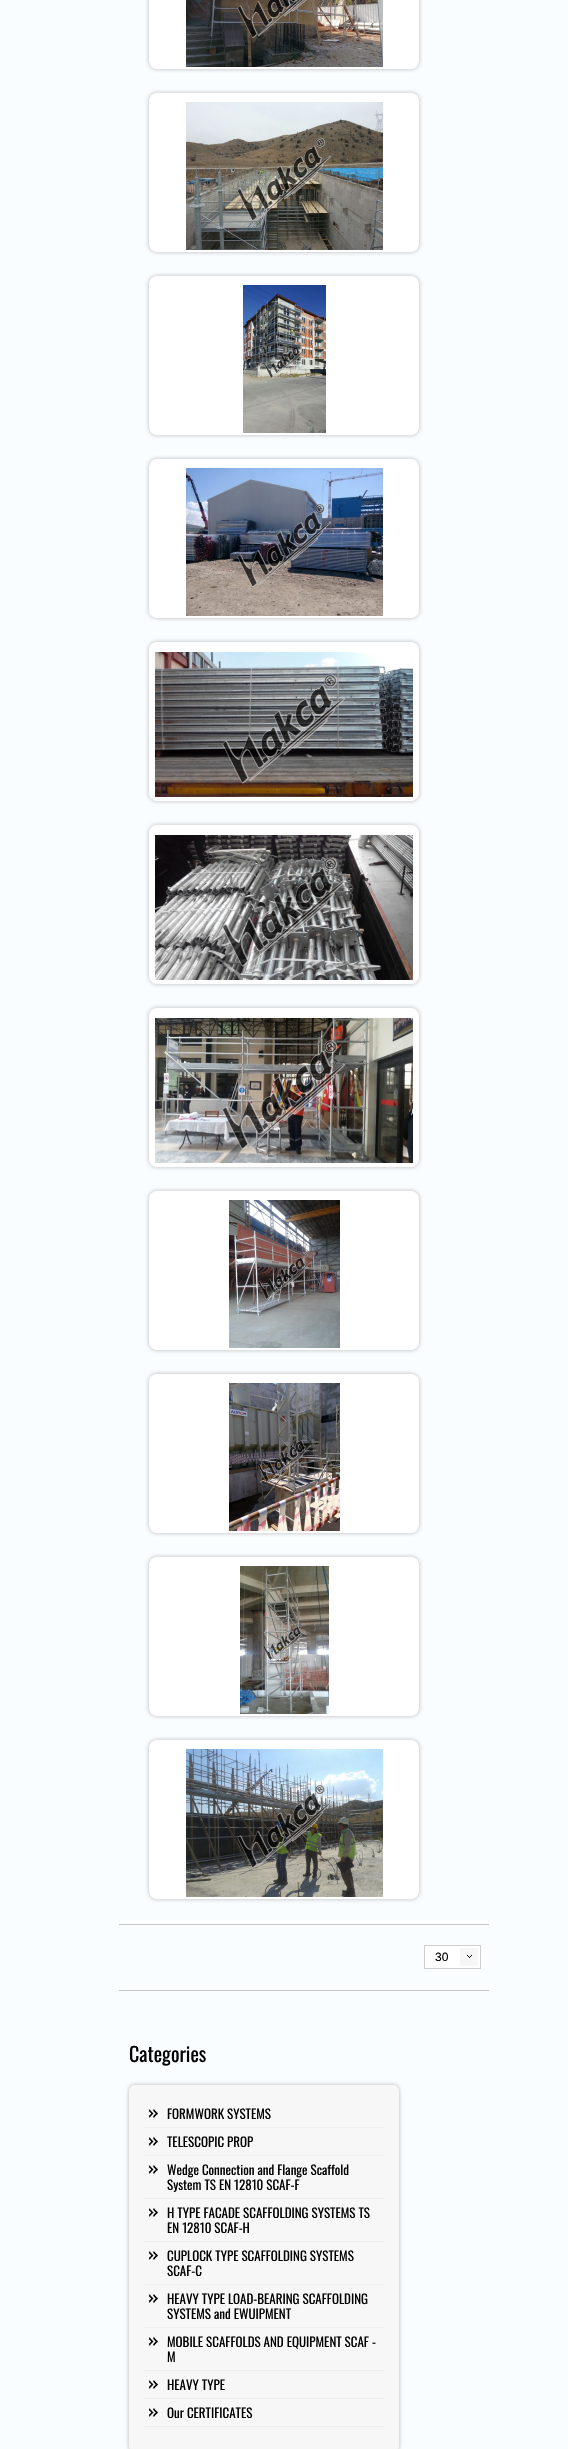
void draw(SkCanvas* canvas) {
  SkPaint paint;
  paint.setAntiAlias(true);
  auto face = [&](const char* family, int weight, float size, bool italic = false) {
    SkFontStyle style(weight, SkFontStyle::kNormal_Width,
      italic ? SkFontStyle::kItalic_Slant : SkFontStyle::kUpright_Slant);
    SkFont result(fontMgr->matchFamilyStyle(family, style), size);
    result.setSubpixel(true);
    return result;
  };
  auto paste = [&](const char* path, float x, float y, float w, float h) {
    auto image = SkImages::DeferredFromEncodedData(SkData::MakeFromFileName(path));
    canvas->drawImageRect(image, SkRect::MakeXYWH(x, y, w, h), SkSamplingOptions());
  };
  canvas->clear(0xfffafdff);
  paint.setColor(0x45000000);
  paint.setMaskFilter(SkMaskFilter::MakeBlur(kNormal_SkBlurStyle, 2));
  canvas->drawRoundRect(SkRect::MakeXYWH(149, -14, 270, 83), 8, 8, paint);
  paint.setMaskFilter(nullptr);
  paint.setColor(0xffffffff);
  canvas->drawRoundRect(SkRect::MakeXYWH(149, -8, 270, 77), 8, 8, paint);
  paste("img/1.png", 186, 0, 197, 67);
  paint.setColor(0x45000000);
  paint.setMaskFilter(SkMaskFilter::MakeBlur(kNormal_SkBlurStyle, 2));
  canvas->drawRoundRect(SkRect::MakeXYWH(149, 93, 270, 159), 8, 8, paint);
  paint.setMaskFilter(nullptr);
  paint.setColor(0xffffffff);
  canvas->drawRoundRect(SkRect::MakeXYWH(149, 93, 270, 159), 8, 8, paint);
  paste("img/2.png", 186, 102, 197, 148);
  paint.setColor(0x45000000);
  paint.setMaskFilter(SkMaskFilter::MakeBlur(kNormal_SkBlurStyle, 2));
  canvas->drawRoundRect(SkRect::MakeXYWH(149, 276, 270, 159), 8, 8, paint);
  paint.setMaskFilter(nullptr);
  paint.setColor(0xffffffff);
  canvas->drawRoundRect(SkRect::MakeXYWH(149, 276, 270, 159), 8, 8, paint);
  paste("img/3.png", 243, 285, 83, 148);
  paint.setColor(0x45000000);
  paint.setMaskFilter(SkMaskFilter::MakeBlur(kNormal_SkBlurStyle, 2));
  canvas->drawRoundRect(SkRect::MakeXYWH(149, 459, 270, 159), 8, 8, paint);
  paint.setMaskFilter(nullptr);
  paint.setColor(0xffffffff);
  canvas->drawRoundRect(SkRect::MakeXYWH(149, 459, 270, 159), 8, 8, paint);
  paste("img/4.png", 186, 468, 197, 148);
  paint.setColor(0x45000000);
  paint.setMaskFilter(SkMaskFilter::MakeBlur(kNormal_SkBlurStyle, 2));
  canvas->drawRoundRect(SkRect::MakeXYWH(149, 642, 270, 159), 8, 8, paint);
  paint.setMaskFilter(nullptr);
  paint.setColor(0xffffffff);
  canvas->drawRoundRect(SkRect::MakeXYWH(149, 642, 270, 159), 8, 8, paint);
  paste("img/5.png", 155, 652, 258, 145);
  paint.setColor(0x45000000);
  paint.setMaskFilter(SkMaskFilter::MakeBlur(kNormal_SkBlurStyle, 2));
  canvas->drawRoundRect(SkRect::MakeXYWH(149, 825, 270, 159), 8, 8, paint);
  paint.setMaskFilter(nullptr);
  paint.setColor(0xffffffff);
  canvas->drawRoundRect(SkRect::MakeXYWH(149, 825, 270, 159), 8, 8, paint);
  paste("img/6.png", 155, 835, 258, 145);
  paint.setColor(0x45000000);
  paint.setMaskFilter(SkMaskFilter::MakeBlur(kNormal_SkBlurStyle, 2));
  canvas->drawRoundRect(SkRect::MakeXYWH(149, 1008, 270, 159), 8, 8, paint);
  paint.setMaskFilter(nullptr);
  paint.setColor(0xffffffff);
  canvas->drawRoundRect(SkRect::MakeXYWH(149, 1008, 270, 159), 8, 8, paint);
  paste("img/7.png", 155, 1018, 258, 145);
  paint.setColor(0x45000000);
  paint.setMaskFilter(SkMaskFilter::MakeBlur(kNormal_SkBlurStyle, 2));
  canvas->drawRoundRect(SkRect::MakeXYWH(149, 1191, 270, 159), 8, 8, paint);
  paint.setMaskFilter(nullptr);
  paint.setColor(0xffffffff);
  canvas->drawRoundRect(SkRect::MakeXYWH(149, 1191, 270, 159), 8, 8, paint);
  paste("img/8.png", 229, 1200, 111, 148);
  paint.setColor(0x45000000);
  paint.setMaskFilter(SkMaskFilter::MakeBlur(kNormal_SkBlurStyle, 2));
  canvas->drawRoundRect(SkRect::MakeXYWH(149, 1374, 270, 159), 8, 8, paint);
  paint.setMaskFilter(nullptr);
  paint.setColor(0xffffffff);
  canvas->drawRoundRect(SkRect::MakeXYWH(149, 1374, 270, 159), 8, 8, paint);
  paste("img/9.png", 229, 1383, 111, 148);
  paint.setColor(0x45000000);
  paint.setMaskFilter(SkMaskFilter::MakeBlur(kNormal_SkBlurStyle, 2));
  canvas->drawRoundRect(SkRect::MakeXYWH(149, 1557, 270, 159), 8, 8, paint);
  paint.setMaskFilter(nullptr);
  paint.setColor(0xffffffff);
  canvas->drawRoundRect(SkRect::MakeXYWH(149, 1557, 270, 159), 8, 8, paint);
  paste("img/10.png", 240, 1566, 89, 148);
  paint.setColor(0x45000000);
  paint.setMaskFilter(SkMaskFilter::MakeBlur(kNormal_SkBlurStyle, 2));
  canvas->drawRoundRect(SkRect::MakeXYWH(149, 1740, 270, 159), 8, 8, paint);
  paint.setMaskFilter(nullptr);
  paint.setColor(0xffffffff);
  canvas->drawRoundRect(SkRect::MakeXYWH(149, 1740, 270, 159), 8, 8, paint);
  paste("img/11.png", 186, 1749, 197, 148);
  paint.setColor(0xffc7c7c7);
  canvas->drawRect(SkRect::MakeXYWH(119, 1924, 370, 1), paint);
  paint.setColor(0xffffffff);
  canvas->drawRect(SkRect::MakeXYWH(424.5f, 1945.5f, 56, 23), paint);
  paint.setStroke(true);
  paint.setStrokeWidth(1);
  paint.setColor(0xffcfcfcf);
  canvas->drawRect(SkRect::MakeXYWH(424.5f, 1945.5f, 56, 23), paint);
  paint.setStroke(false);
  paint.setColor(0xfff6f6f6);
  canvas->drawRect(SkRect::MakeXYWH(460, 1948, 18, 18), paint);
  paste("img/12.png", 467, 1955, 5, 3);
  paint.setColor(0xffc7c7c7);
  canvas->drawRect(SkRect::MakeXYWH(119, 1990, 370, 1), paint);
  paint.setColor(0x45000000);
  paint.setMaskFilter(SkMaskFilter::MakeBlur(kNormal_SkBlurStyle, 2));
  canvas->drawRoundRect(SkRect::MakeXYWH(129, 2085, 270, 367), 6, 6, paint);
  paint.setMaskFilter(nullptr);
  paint.setColor(0xfff7f7f7);
  canvas->drawRoundRect(SkRect::MakeXYWH(129, 2085, 270, 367), 6, 6, paint);
  paste("img/13.png", 149, 2109, 9, 9);
  paint.setColor(0xffeeeeee);
  canvas->drawRect(SkRect::MakeXYWH(144, 2127, 240, 1), paint);
  paste("img/13.png", 149, 2137, 9, 9);
  canvas->drawRect(SkRect::MakeXYWH(144, 2155, 240, 1), paint);
  paste("img/13.png", 149, 2165, 9, 9);
  canvas->drawRect(SkRect::MakeXYWH(144, 2198, 240, 1), paint);
  paste("img/13.png", 149, 2208, 9, 9);
  canvas->drawRect(SkRect::MakeXYWH(144, 2241, 240, 1), paint);
  paste("img/13.png", 149, 2251, 9, 9);
  canvas->drawRect(SkRect::MakeXYWH(144, 2284, 240, 1), paint);
  paste("img/13.png", 149, 2294, 9, 9);
  canvas->drawRect(SkRect::MakeXYWH(144, 2327, 240, 1), paint);
  paste("img/13.png", 149, 2337, 9, 9);
  canvas->drawRect(SkRect::MakeXYWH(144, 2370, 240, 1), paint);
  paste("img/13.png", 149, 2380, 9, 9);
  canvas->drawRect(SkRect::MakeXYWH(144, 2398, 240, 1), paint);
  paste("img/13.png", 149, 2408, 9, 9);
  canvas->drawRect(SkRect::MakeXYWH(144, 2426, 240, 1), paint);
  auto f0 = face("Liberation Sans", 400, 12);
  paint.setColor(0xff000000);
  canvas->drawString("30", 435, 1961, f0, paint);
  auto f1 = face("Oswald", 400, 20);
  canvas->drawString("Categories", 129, 2062, f1, paint);
  auto f2 = face("Oswald", 400, 13);
  {
    const struct { const char* s; float x, y; } items[] = {
      {"FORMWORK SYSTEMS", 167, 2119},
      {"TELESCOPIC PROP", 167, 2147},
      {"Wedge Connection and Flange Scaffold", 167, 2175},
      {"System TS EN 12810 SCAF-F", 167, 2190},
      {"H TYPE FACADE SCAFFOLDING SYSTEMS TS", 167, 2218},
      {"EN 12810 SCAF-H", 167, 2233},
      {"CUPLOCK TYPE SCAFFOLDING SYSTEMS", 167, 2261},
      {"SCAF-C", 167, 2276},
      {"HEAVY TYPE LOAD-BEARING SCAFFOLDING", 167, 2304},
      {"SYSTEMS and EWUIPMENT", 167, 2319},
      {"MOBILE SCAFFOLDS AND EQUIPMENT SCAF -", 167, 2347},
      {"M", 167, 2362},
      {"HEAVY TYPE", 167, 2390},
      {"Our CERTIFICATES", 167, 2418},
    };
    for (auto [s, x, y] : items) {
      canvas->drawString(s, x, y, f2, paint);
    }
  }
}
